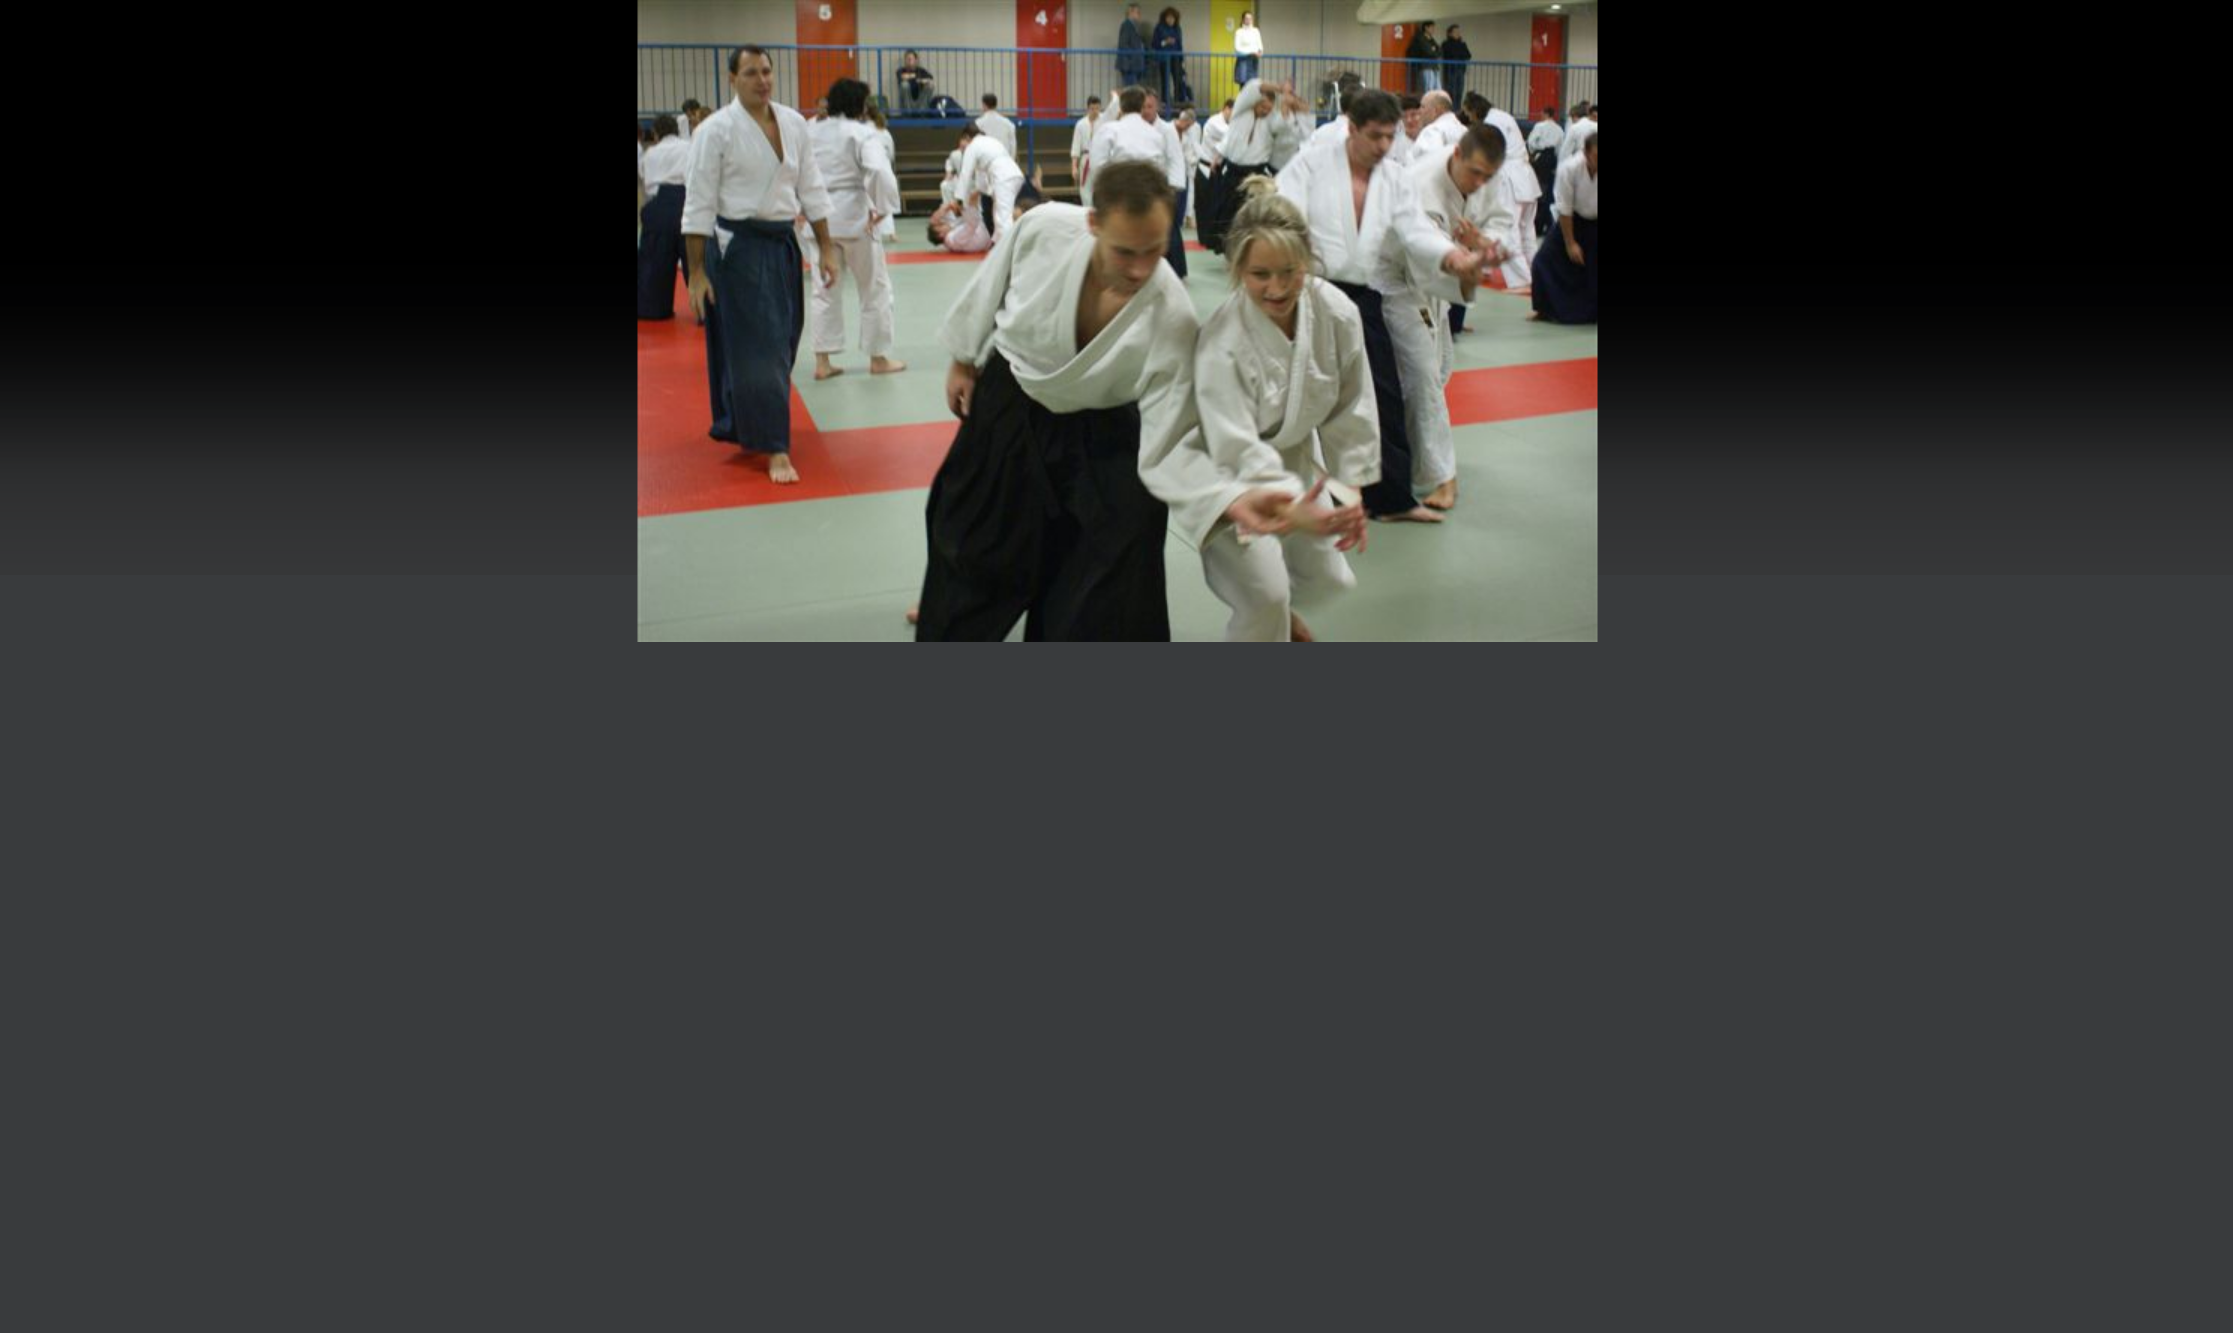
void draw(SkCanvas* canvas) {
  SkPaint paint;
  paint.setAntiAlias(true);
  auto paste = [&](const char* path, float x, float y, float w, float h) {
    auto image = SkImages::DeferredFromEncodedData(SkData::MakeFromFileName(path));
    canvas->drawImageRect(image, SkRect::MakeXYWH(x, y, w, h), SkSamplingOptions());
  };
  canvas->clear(0xff393b3d);
  paste("img/1.png", 0, 0, 2233, 575);
  paste("img/2.png", 637, 0, 961, 642);
}
